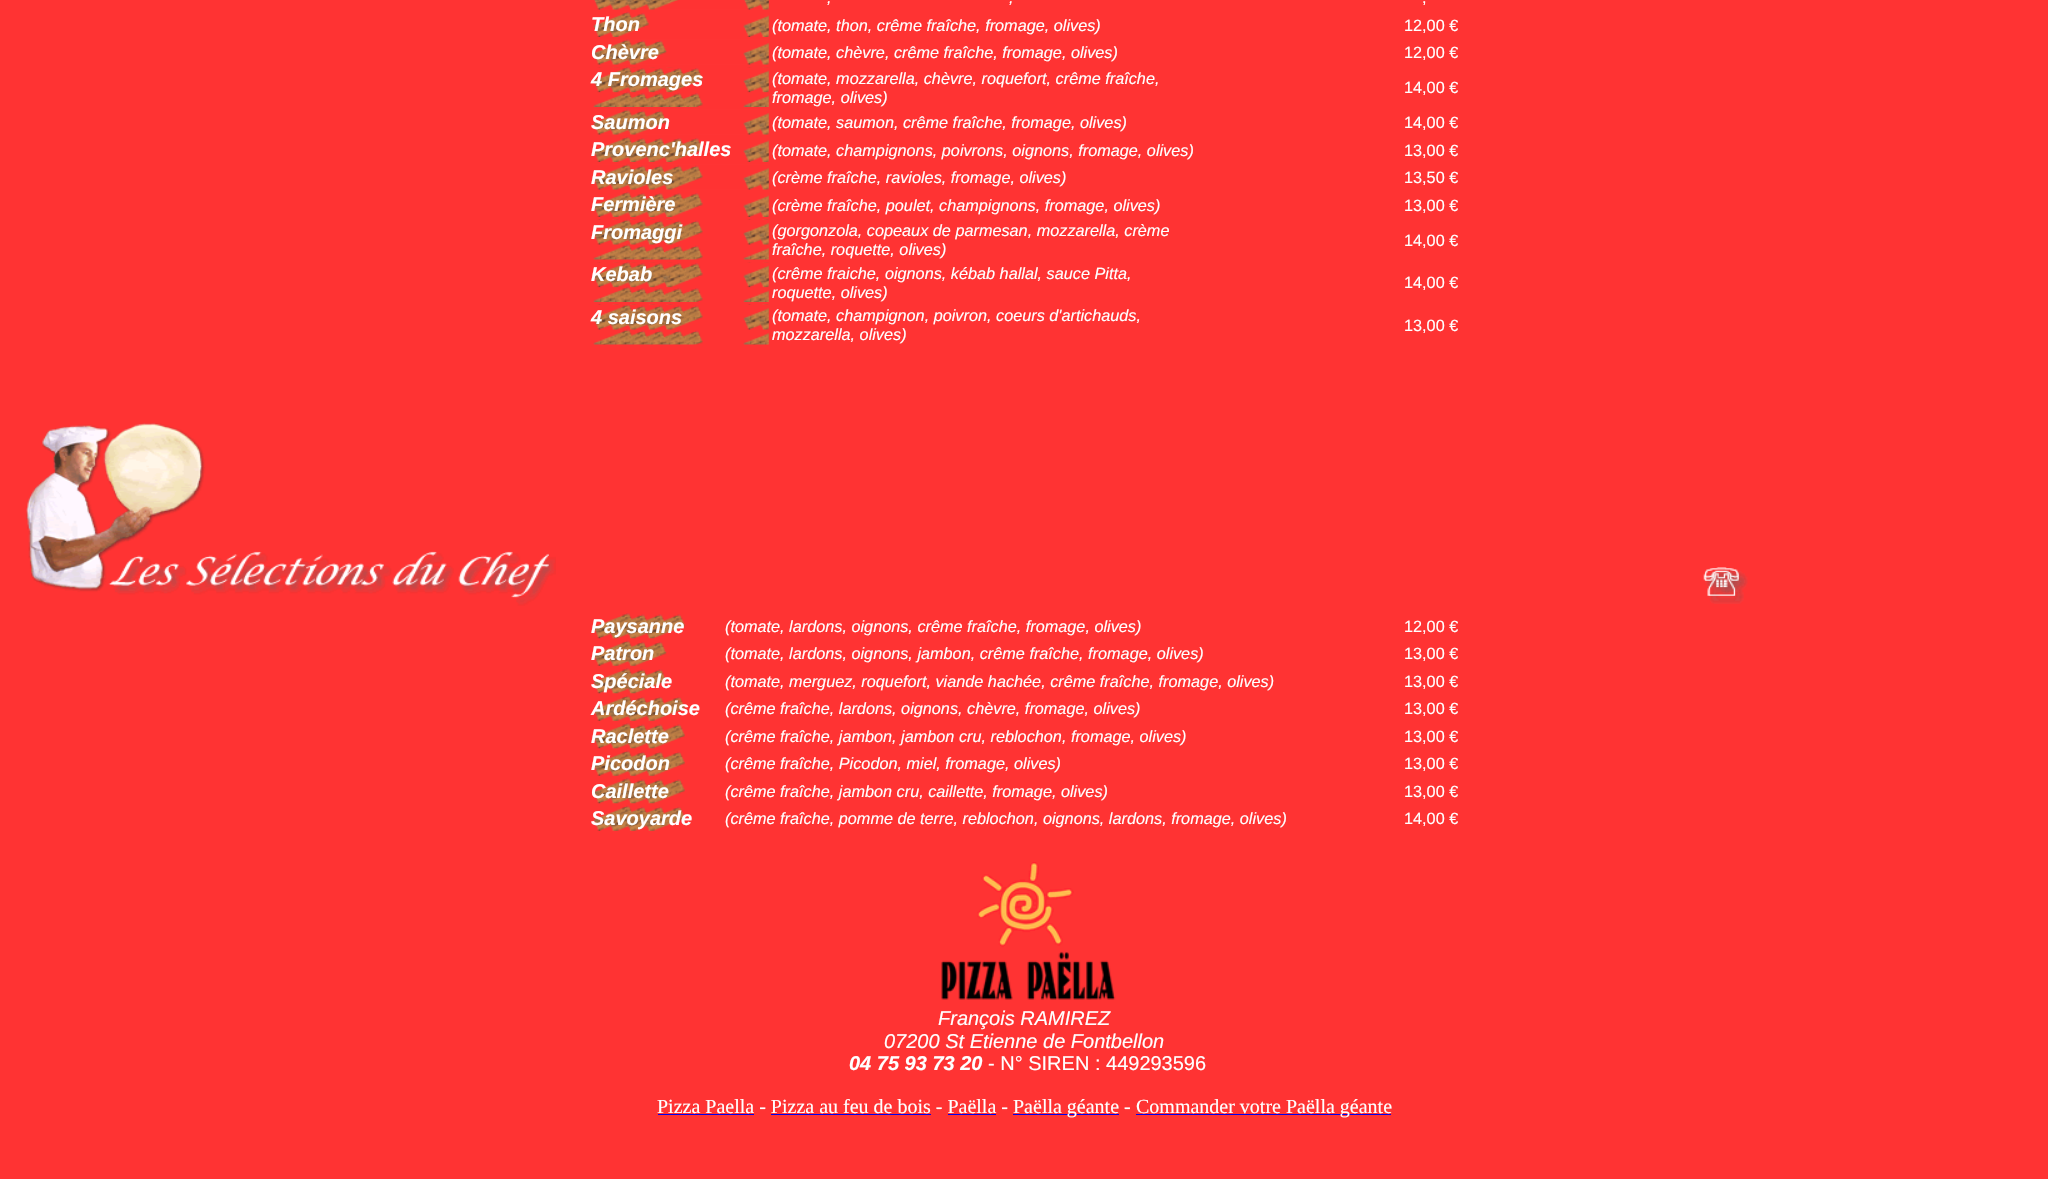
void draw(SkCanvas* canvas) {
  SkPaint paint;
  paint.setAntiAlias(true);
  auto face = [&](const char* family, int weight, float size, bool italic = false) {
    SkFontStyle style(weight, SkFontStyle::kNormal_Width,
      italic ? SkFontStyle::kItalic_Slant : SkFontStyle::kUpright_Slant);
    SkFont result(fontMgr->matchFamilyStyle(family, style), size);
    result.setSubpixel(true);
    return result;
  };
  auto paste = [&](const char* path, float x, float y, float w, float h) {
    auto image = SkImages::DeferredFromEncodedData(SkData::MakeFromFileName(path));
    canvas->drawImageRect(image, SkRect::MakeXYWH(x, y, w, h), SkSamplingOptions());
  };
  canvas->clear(0xffff3333);
  paste("img/1.png", 593, 0, 176, 10);
  paste("img/2.png", 593, 12, 176, 25);
  paste("img/3.png", 593, 39, 176, 26);
  paste("img/4.png", 593, 67, 176, 40);
  paste("img/5.png", 593, 109, 176, 26);
  paste("img/6.png", 593, 137, 176, 25);
  paste("img/7.png", 593, 164, 176, 26);
  paste("img/8.png", 593, 192, 176, 25);
  paste("img/9.png", 593, 219, 176, 41);
  paste("img/4.png", 593, 262, 176, 40);
  paste("img/9.png", 593, 304, 176, 41);
  paste("img/10.png", 26, 423, 530, 183);
  paste("img/11.png", 1703, 567, 45, 37);
  paste("img/12.png", 593, 613, 92, 26);
  paste("img/13.png", 593, 640, 74, 26);
  paste("img/14.png", 593, 668, 74, 26);
  paste("img/15.png", 593, 695, 92, 26);
  paste("img/16.png", 593, 723, 92, 26);
  paste("img/15.png", 593, 750, 92, 26);
  paste("img/16.png", 593, 778, 92, 26);
  paste("img/15.png", 593, 805, 92, 26);
  paste("img/17.png", 941, 862, 175, 138);
  {
    const struct { float x, y, w, h; SkColor color; } items[] = {
      {658, 1114, 96, 1, 0xff0000ee},
      {1013, 1114, 106, 1, 0xff0000ee},
      {1136, 1114, 255, 1, 0xff0000ee},
      {771, 1114, 160, 1, 0xff0000ee},
      {948, 1114, 48, 1, 0xff0000ee},
    };
    for (auto [x, y, w, h, color] : items) {
      paint.setColor(color);
      canvas->drawRect(SkRect::MakeXYWH(x, y, w, h), paint);
    }
  }
  auto f0 = face("Liberation Sans", 400, 16.25f, true);
  paint.setColor(0xffffffff);
  canvas->drawString(",", 827, 3, f0, paint);
  canvas->drawString(",", 1009, 3, f0, paint);
  auto f1 = face("Liberation Sans", 400, 16.25f);
  canvas->drawString(",", 1422, 3, f1, paint);
  auto f2 = face("Liberation Sans", 700, 20, true);
  canvas->drawString("Thon", 591, 31, f2, paint);
  canvas->drawString("(tomate, thon, crême fraîche, fromage, olives)", 772, 31, f0, paint);
  canvas->drawString("12,00 €", 1404, 31, f1, paint);
  canvas->drawString("Chèvre", 591, 59, f2, paint);
  canvas->drawString("(tomate, chèvre, crême fraîche, fromage, olives)", 772, 58, f0, paint);
  canvas->drawString("12,00 €", 1404, 58, f1, paint);
  canvas->drawString("4 Fromages", 591, 86, f2, paint);
  canvas->drawString("(tomate, mozzarella, chèvre, roquefort, crême fraîche,", 772, 84, f0, paint);
  canvas->drawString("fromage, olives)", 772, 103, f0, paint);
  canvas->drawString("14,00 €", 1404, 93, f1, paint);
  canvas->drawString("Saumon", 591, 129, f2, paint);
  canvas->drawString("(tomate, saumon, crême fraîche, fromage, olives)", 772, 128, f0, paint);
  canvas->drawString("14,00 €", 1404, 128, f1, paint);
  canvas->drawString("Provenc'halles", 591, 156, f2, paint);
  canvas->drawString("(tomate, champignons, poivrons, oignons, fromage, olives)", 772, 156, f0, paint);
  canvas->drawString("13,00 €", 1404, 156, f1, paint);
  canvas->drawString("Ravioles", 591, 184, f2, paint);
  canvas->drawString("(crème fraîche, ravioles, fromage, olives)", 772, 183, f0, paint);
  canvas->drawString("13,50 €", 1404, 183, f1, paint);
  canvas->drawString("Fermière", 591, 211, f2, paint);
  canvas->drawString("(crème fraîche, poulet, champignons, fromage, olives)", 772, 211, f0, paint);
  canvas->drawString("13,00 €", 1404, 211, f1, paint);
  canvas->drawString("Fromaggi", 591, 239, f2, paint);
  canvas->drawString("(gorgonzola, copeaux de parmesan, mozzarella, crème", 772, 236, f0, paint);
  canvas->drawString("fraîche, roquette, olives)", 772, 255, f0, paint);
  canvas->drawString("14,00 €", 1404, 246, f1, paint);
  canvas->drawString("Kebab", 591, 281, f2, paint);
  canvas->drawString("(crême fraiche, oignons, kébab hallal, sauce Pitta,", 772, 279, f0, paint);
  canvas->drawString("roquette, olives)", 772, 298, f0, paint);
  canvas->drawString("14,00 €", 1404, 288, f1, paint);
  canvas->drawString("4 saisons", 591, 324, f2, paint);
  canvas->drawString("(tomate, champignon, poivron, coeurs d'artichauds,", 772, 321, f0, paint);
  canvas->drawString("mozzarella, olives)", 772, 340, f0, paint);
  canvas->drawString("13,00 €", 1404, 331, f1, paint);
  canvas->drawString("Paysanne", 591, 633, f2, paint);
  canvas->drawString("(tomate, lardons, oignons, crême fraîche, fromage, olives)", 725, 632, f0, paint);
  canvas->drawString("12,00 €", 1404, 632, f1, paint);
  canvas->drawString("Patron", 591, 660, f2, paint);
  canvas->drawString("(tomate, lardons, oignons, jambon, crême fraîche, fromage, olives)", 725, 659, f0, paint);
  canvas->drawString("13,00 €", 1404, 659, f1, paint);
  canvas->drawString("Spéciale", 591, 688, f2, paint);
  canvas->drawString("(tomate, merguez, roquefort, viande hachée, crême fraîche, fromage, olives)", 725, 687, f0, paint);
  canvas->drawString("13,00 €", 1404, 687, f1, paint);
  canvas->drawString("Ardéchoise", 591, 715, f2, paint);
  canvas->drawString("(crême fraîche, lardons, oignons, chèvre, fromage, olives)", 725, 714, f0, paint);
  canvas->drawString("13,00 €", 1404, 714, f1, paint);
  canvas->drawString("Raclette", 591, 743, f2, paint);
  canvas->drawString("(crême fraîche, jambon, jambon cru, reblochon, fromage, olives)", 725, 742, f0, paint);
  canvas->drawString("13,00 €", 1404, 742, f1, paint);
  canvas->drawString("Picodon", 591, 770, f2, paint);
  canvas->drawString("(crême fraîche, Picodon, miel, fromage, olives)", 725, 769, f0, paint);
  canvas->drawString("13,00 €", 1404, 769, f1, paint);
  canvas->drawString("Caillette", 591, 798, f2, paint);
  canvas->drawString("(crême fraîche, jambon cru, caillette, fromage, olives)", 725, 797, f0, paint);
  canvas->drawString("13,00 €", 1404, 797, f1, paint);
  canvas->drawString("Savoyarde", 591, 825, f2, paint);
  canvas->drawString("(crême fraîche, pomme de terre, reblochon, oignons, lardons, fromage, olives)", 725, 824, f0, paint);
  canvas->drawString("14,00 €", 1404, 824, f1, paint);
  auto f3 = face("Liberation Sans", 400, 20, true);
  canvas->drawString("François RAMIREZ", 938, 1025, f3, paint);
  canvas->drawString("07200 St Etienne de Fontbellon", 884, 1048, f3, paint);
  canvas->drawString("04 75 93 73 20", 849, 1070, f2, paint);
  auto f4 = face("Liberation Sans", 400, 20);
  canvas->drawString("- N° SIREN : 449293596", 988, 1070, f4, paint);
  auto f5 = face("Liberation Serif", 400, 20);
  {
    const struct { const char* s; float x, y; } items[] = {
      {"Pizza Paella - Pizza au feu de bois - Paëlla -", 657, 1113},
      {"Paëlla géante -", 1013, 1113},
      {"Commander votre Paëlla géante", 1136, 1113},
    };
    for (auto [s, x, y] : items) {
      canvas->drawString(s, x, y, f5, paint);
    }
  }
}
